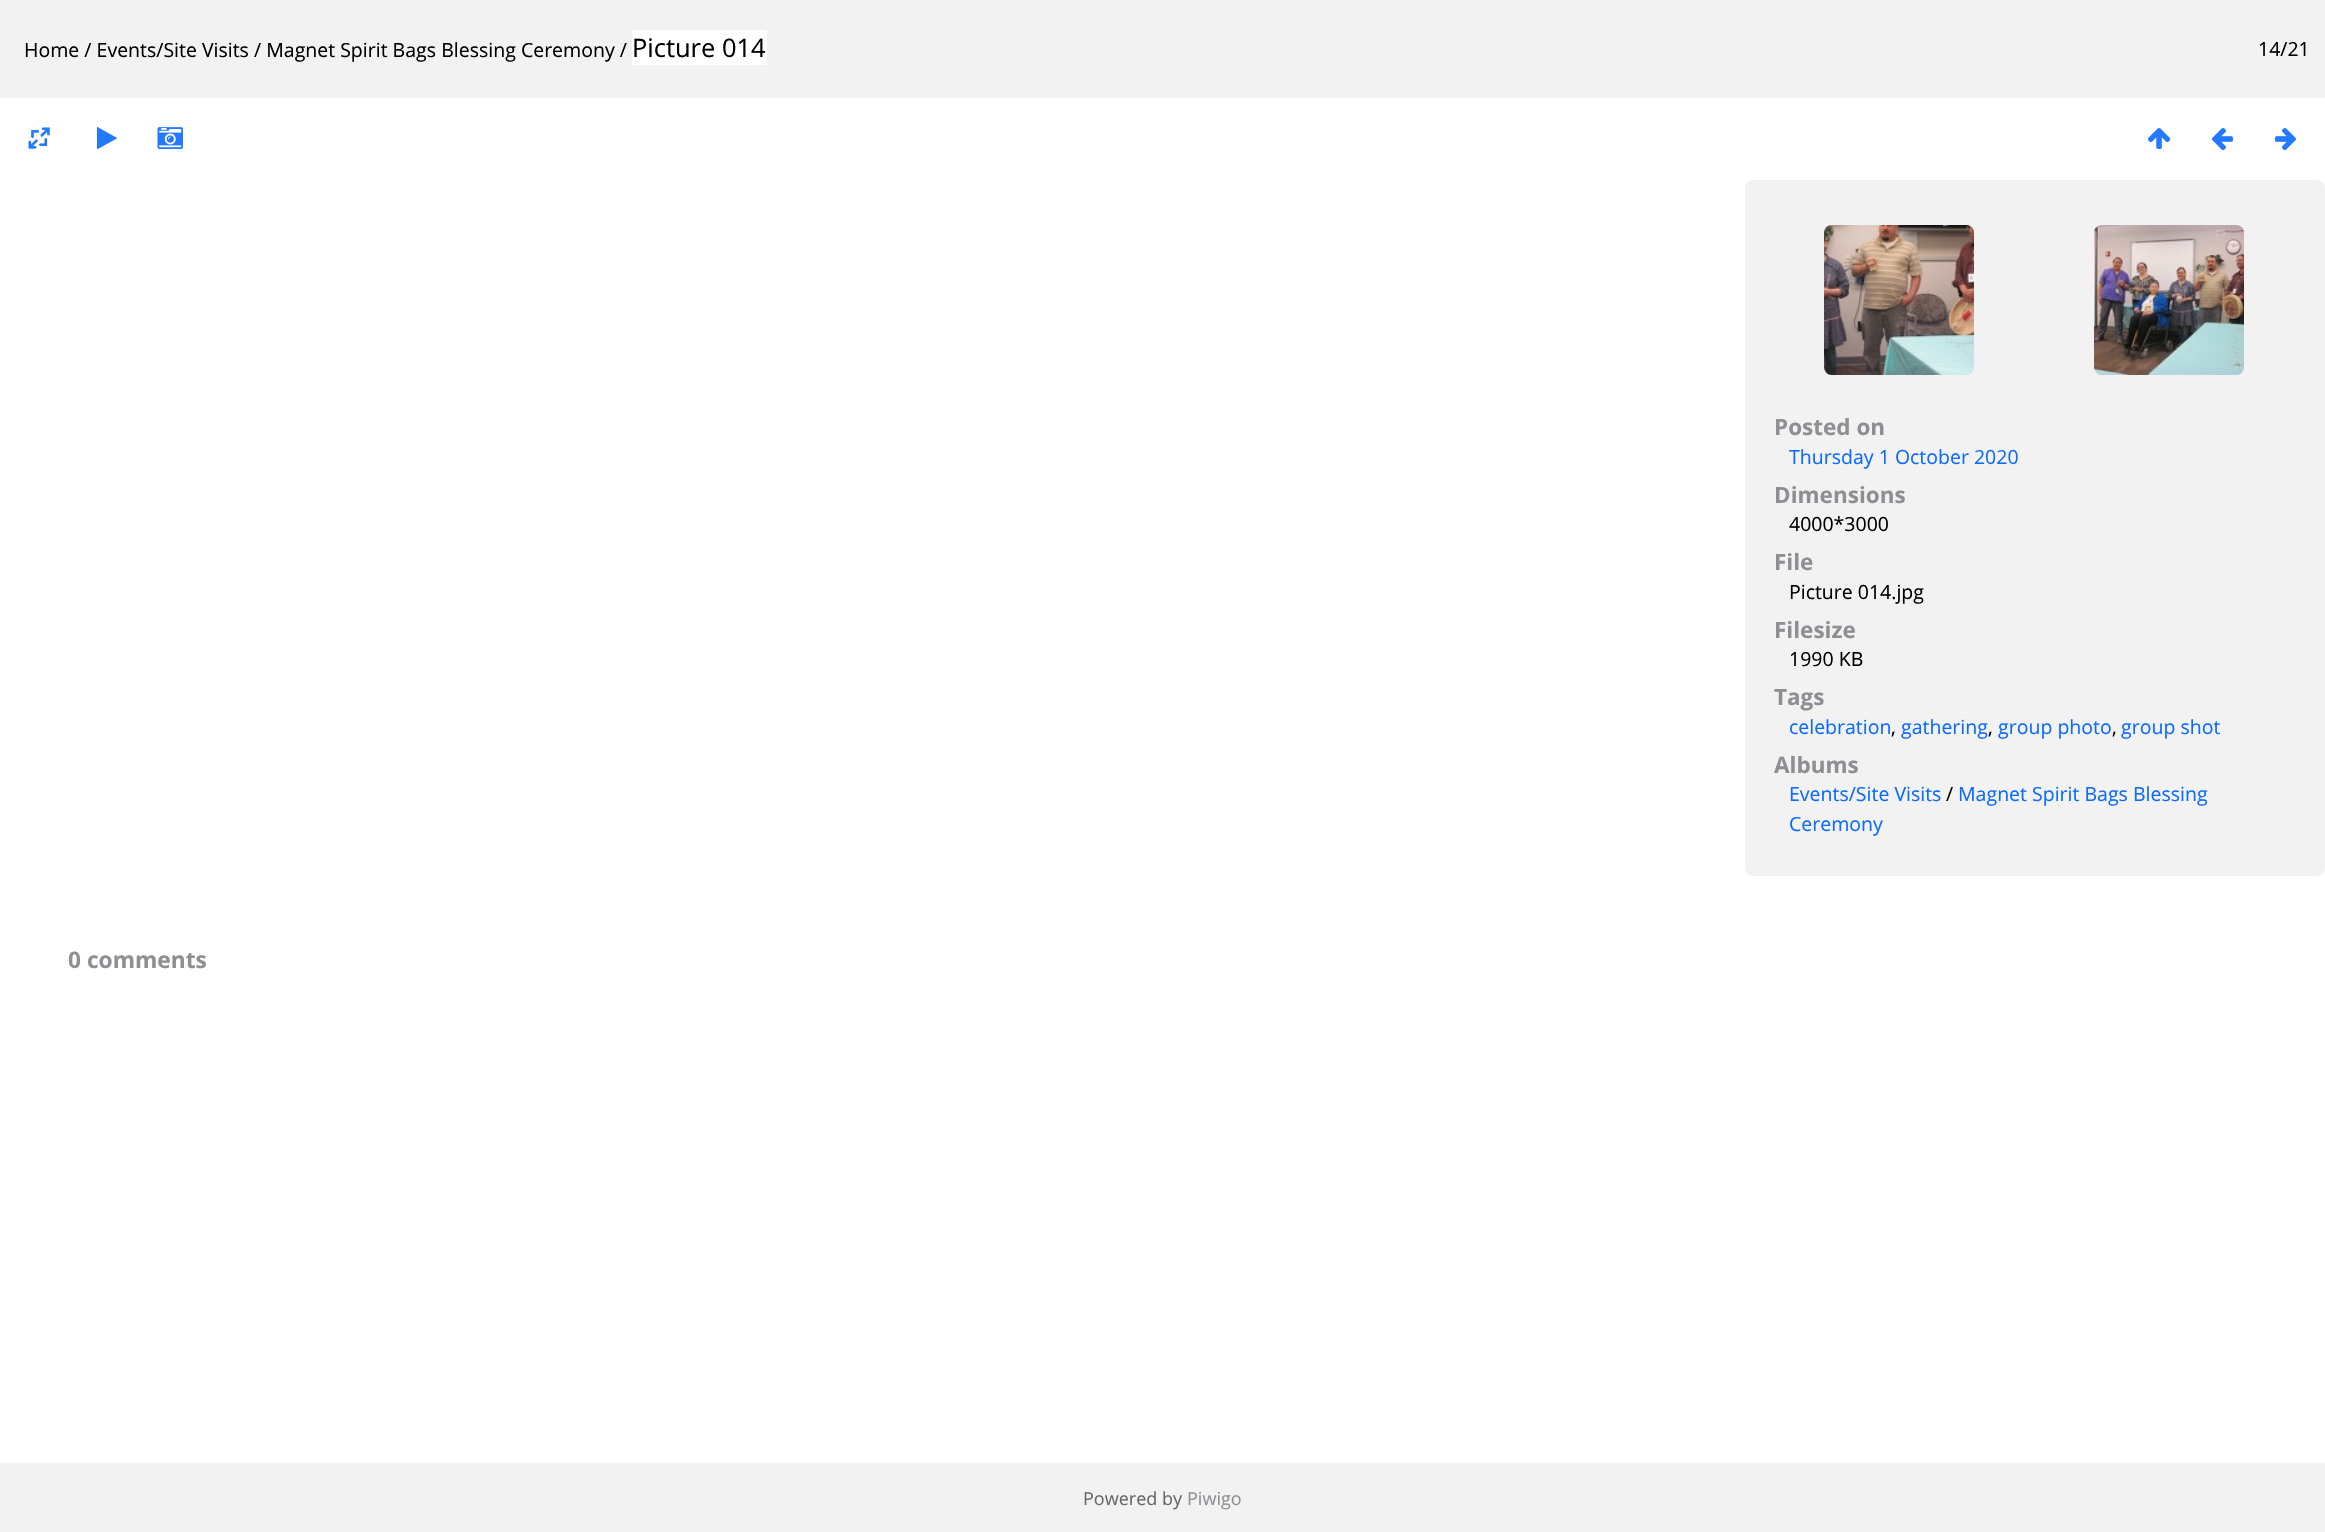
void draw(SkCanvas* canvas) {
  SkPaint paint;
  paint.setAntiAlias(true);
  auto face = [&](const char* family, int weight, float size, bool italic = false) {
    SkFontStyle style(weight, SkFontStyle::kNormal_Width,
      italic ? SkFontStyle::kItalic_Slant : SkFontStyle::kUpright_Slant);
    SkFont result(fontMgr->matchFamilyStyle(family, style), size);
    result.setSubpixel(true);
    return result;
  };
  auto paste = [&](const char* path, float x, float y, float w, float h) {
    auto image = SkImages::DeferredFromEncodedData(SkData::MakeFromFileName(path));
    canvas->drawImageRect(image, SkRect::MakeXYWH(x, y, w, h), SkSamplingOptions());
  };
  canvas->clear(0xffffffff);
  paint.setColor(0xfff2f2f2);
  canvas->drawRect(SkRect::MakeXYWH(0, 0, 2325, 98), paint);
  paint.setColor(0xffffffff);
  canvas->drawRect(SkRect::MakeXYWH(632, 30, 135, 35), paint);
  paste("img/1.png", 28, 127, 22, 22);
  paste("img/2.png", 157, 127, 26, 22);
  paint.setColor(0xfff2f2f2);
  canvas->drawRoundRect(SkRect::MakeXYWH(1745, 180, 580, 696), 8, 8, paint);
  paste("img/3.png", 1824, 225, 150, 150);
  paste("img/4.png", 2094, 225, 150, 150);
  canvas->drawRect(SkRect::MakeXYWH(0, 1463, 2325, 69), paint);
  auto f0 = face("Open Sans", 400, 19.5f);
  paint.setColor(0xff000000);
  canvas->drawString("Home / Events/Site Visits / Magnet Spirit Bags Blessing Ceremony /", 24, 57, f0, paint);
  auto f1 = face("Open Sans", 400, 25.5f);
  canvas->drawString("Picture 014", 632, 57, f1, paint);
  canvas->drawString("14/21", 2258, 56, f0, paint);
  auto f2 = face("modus", 400, 25.5f);
  paint.setColor(0xff2379ff);
  {
    const struct { const char* s; float x, y; } items[] = {
      {"▶", 97, 147},
      {"↑", 2148, 147},
      {"←", 2212, 147},
      {"→", 2275, 147},
    };
    for (auto [s, x, y] : items) {
      canvas->drawString(s, x, y, f2, paint);
    }
  }
  auto f3 = face("Open Sans", 700, 22.5f);
  paint.setColor(0xff8e8e93);
  canvas->drawString("Posted on", 1774, 435, f3, paint);
  paint.setColor(0xff0b6aff);
  canvas->drawString("Thursday 1 October 2020", 1789, 464, f0, paint);
  paint.setColor(0xff8e8e93);
  canvas->drawString("Dimensions", 1774, 503, f3, paint);
  paint.setColor(0xff000000);
  canvas->drawString("4000*3000", 1789, 531, f0, paint);
  paint.setColor(0xff8e8e93);
  canvas->drawString("File", 1774, 570, f3, paint);
  paint.setColor(0xff000000);
  canvas->drawString("Picture 014.jpg", 1789, 599, f0, paint);
  paint.setColor(0xff8e8e93);
  canvas->drawString("Filesize", 1774, 638, f3, paint);
  paint.setColor(0xff000000);
  canvas->drawString("1990 KB", 1789, 666, f0, paint);
  paint.setColor(0xff8e8e93);
  canvas->drawString("Tags", 1774, 705, f3, paint);
  paint.setColor(0xff0b6aff);
  canvas->drawString("celebration", 1789, 734, f0, paint);
  paint.setColor(0xff000000);
  canvas->drawString(",", 1891, 734, f0, paint);
  paint.setColor(0xff0b6aff);
  canvas->drawString("gathering", 1901, 734, f0, paint);
  paint.setColor(0xff000000);
  canvas->drawString(",", 1988, 734, f0, paint);
  paint.setColor(0xff0b6aff);
  canvas->drawString("group photo", 1998, 734, f0, paint);
  paint.setColor(0xff000000);
  canvas->drawString(",", 2112, 734, f0, paint);
  paint.setColor(0xff0b6aff);
  canvas->drawString("group shot", 2121, 734, f0, paint);
  paint.setColor(0xff8e8e93);
  canvas->drawString("Albums", 1774, 773, f3, paint);
  paint.setColor(0xff0b6aff);
  canvas->drawString("Events/Site Visits", 1789, 801, f0, paint);
  paint.setColor(0xff000000);
  canvas->drawString("/", 1946, 801, f0, paint);
  paint.setColor(0xff0b6aff);
  canvas->drawString("Magnet Spirit Bags Blessing", 1958, 801, f0, paint);
  canvas->drawString("Ceremony", 1789, 831, f0, paint);
  auto f4 = face("Open Sans", 700, 22.75f);
  paint.setColor(0xff8e8e93);
  canvas->drawString("0 comments", 68, 968, f4, paint);
  auto f5 = face("Open Sans", 400, 18);
  paint.setColor(0xff666666);
  canvas->drawString("Powered by", 1083, 1505, f5, paint);
  paint.setColor(0xff8e8e93);
  canvas->drawString("Piwigo", 1187, 1505, f5, paint);
}
